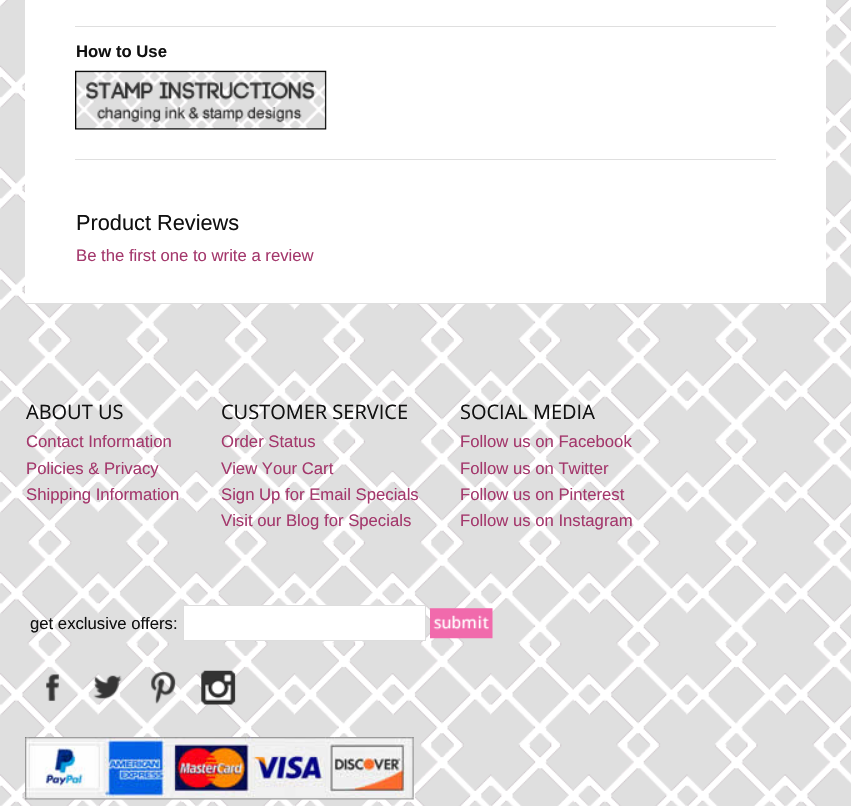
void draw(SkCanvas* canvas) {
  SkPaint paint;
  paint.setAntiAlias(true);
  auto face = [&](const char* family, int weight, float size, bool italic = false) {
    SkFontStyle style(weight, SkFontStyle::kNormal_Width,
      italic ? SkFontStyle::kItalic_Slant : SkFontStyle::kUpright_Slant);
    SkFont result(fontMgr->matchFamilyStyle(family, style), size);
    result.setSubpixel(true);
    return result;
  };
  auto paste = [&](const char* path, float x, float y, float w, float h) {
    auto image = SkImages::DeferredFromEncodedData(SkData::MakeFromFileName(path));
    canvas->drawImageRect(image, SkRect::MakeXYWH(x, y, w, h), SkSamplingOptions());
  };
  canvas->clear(0xffffffff);
  paste("img/1.png", 0, 0, 851, 806);
  paint.setColor(0xffffffff);
  canvas->drawRect(SkRect::MakeXYWH(25, 0, 801, 303), paint);
  paint.setColor(0xffdfdfdf);
  canvas->drawRect(SkRect::MakeXYWH(75, 26, 701, 1), paint);
  paste("img/2.png", 75, 70, 252, 60);
  canvas->drawRect(SkRect::MakeXYWH(75, 159, 701, 1), paint);
  canvas->drawRect(SkRect::MakeXYWH(25, 303, 801, 1), paint);
  paint.setColor(0xffffffff);
  canvas->drawRect(SkRect::MakeXYWH(183.5f, 605.5f, 242, 35), paint);
  paint.setStroke(true);
  paint.setStrokeWidth(1);
  paint.setColor(0xffdddddd);
  canvas->drawRect(SkRect::MakeXYWH(183.5f, 605.5f, 242, 35), paint);
  paste("img/3.png", 430, 608, 63, 31);
  paste("img/4.png", 46, 674, 13, 27);
  paste("img/5.png", 93, 675, 29, 24);
  paste("img/6.png", 151, 671, 25, 33);
  paste("img/7.png", 201, 670, 35, 35);
  paste("img/8.png", 25, 737, 389, 63);
  auto f0 = face("Liberation Sans", 700, 16.7f);
  paint.setStroke(false);
  paint.setColor(0xff111111);
  canvas->drawString("How to Use", 76, 57, f0, paint);
  auto f1 = face("Liberation Sans", 400, 21.75f);
  canvas->drawString("Product Reviews", 76, 230, f1, paint);
  auto f2 = face("Liberation Sans", 400, 16.7f);
  paint.setColor(0xffa4386c);
  canvas->drawString("Be the first one to write a review", 76, 261, f2, paint);
  auto f3 = face("Open Sans", 400, 20);
  paint.setColor(0xff111111);
  canvas->drawString("ABOUT US", 26, 419, f3, paint);
  paint.setColor(0xffa4386c);
  {
    const struct { const char* s; float x, y; } items[] = {
      {"Contact Information", 26, 447},
      {"Policies & Privacy", 26, 474},
      {"Shipping Information", 26, 500},
    };
    for (auto [s, x, y] : items) {
      canvas->drawString(s, x, y, f2, paint);
    }
  }
  paint.setColor(0xff111111);
  canvas->drawString("CUSTOMER SERVICE", 221, 419, f3, paint);
  paint.setColor(0xffa4386c);
  {
    const struct { const char* s; float x, y; } items[] = {
      {"Order Status", 221, 447},
      {"View Your Cart", 221, 474},
      {"Sign Up for Email Specials", 221, 500},
      {"Visit our Blog for Specials", 221, 526},
    };
    for (auto [s, x, y] : items) {
      canvas->drawString(s, x, y, f2, paint);
    }
  }
  paint.setColor(0xff111111);
  canvas->drawString("SOCIAL MEDIA", 460, 419, f3, paint);
  paint.setColor(0xffa4386c);
  {
    const struct { const char* s; float x, y; } items[] = {
      {"Follow us on Facebook", 460, 447},
      {"Follow us on Twitter", 460, 474},
      {"Follow us on Pinterest", 460, 500},
      {"Follow us on Instagram", 460, 526},
    };
    for (auto [s, x, y] : items) {
      canvas->drawString(s, x, y, f2, paint);
    }
  }
  paint.setColor(0xff111111);
  canvas->drawString("get exclusive offers:", 30, 629, f2, paint);
}
